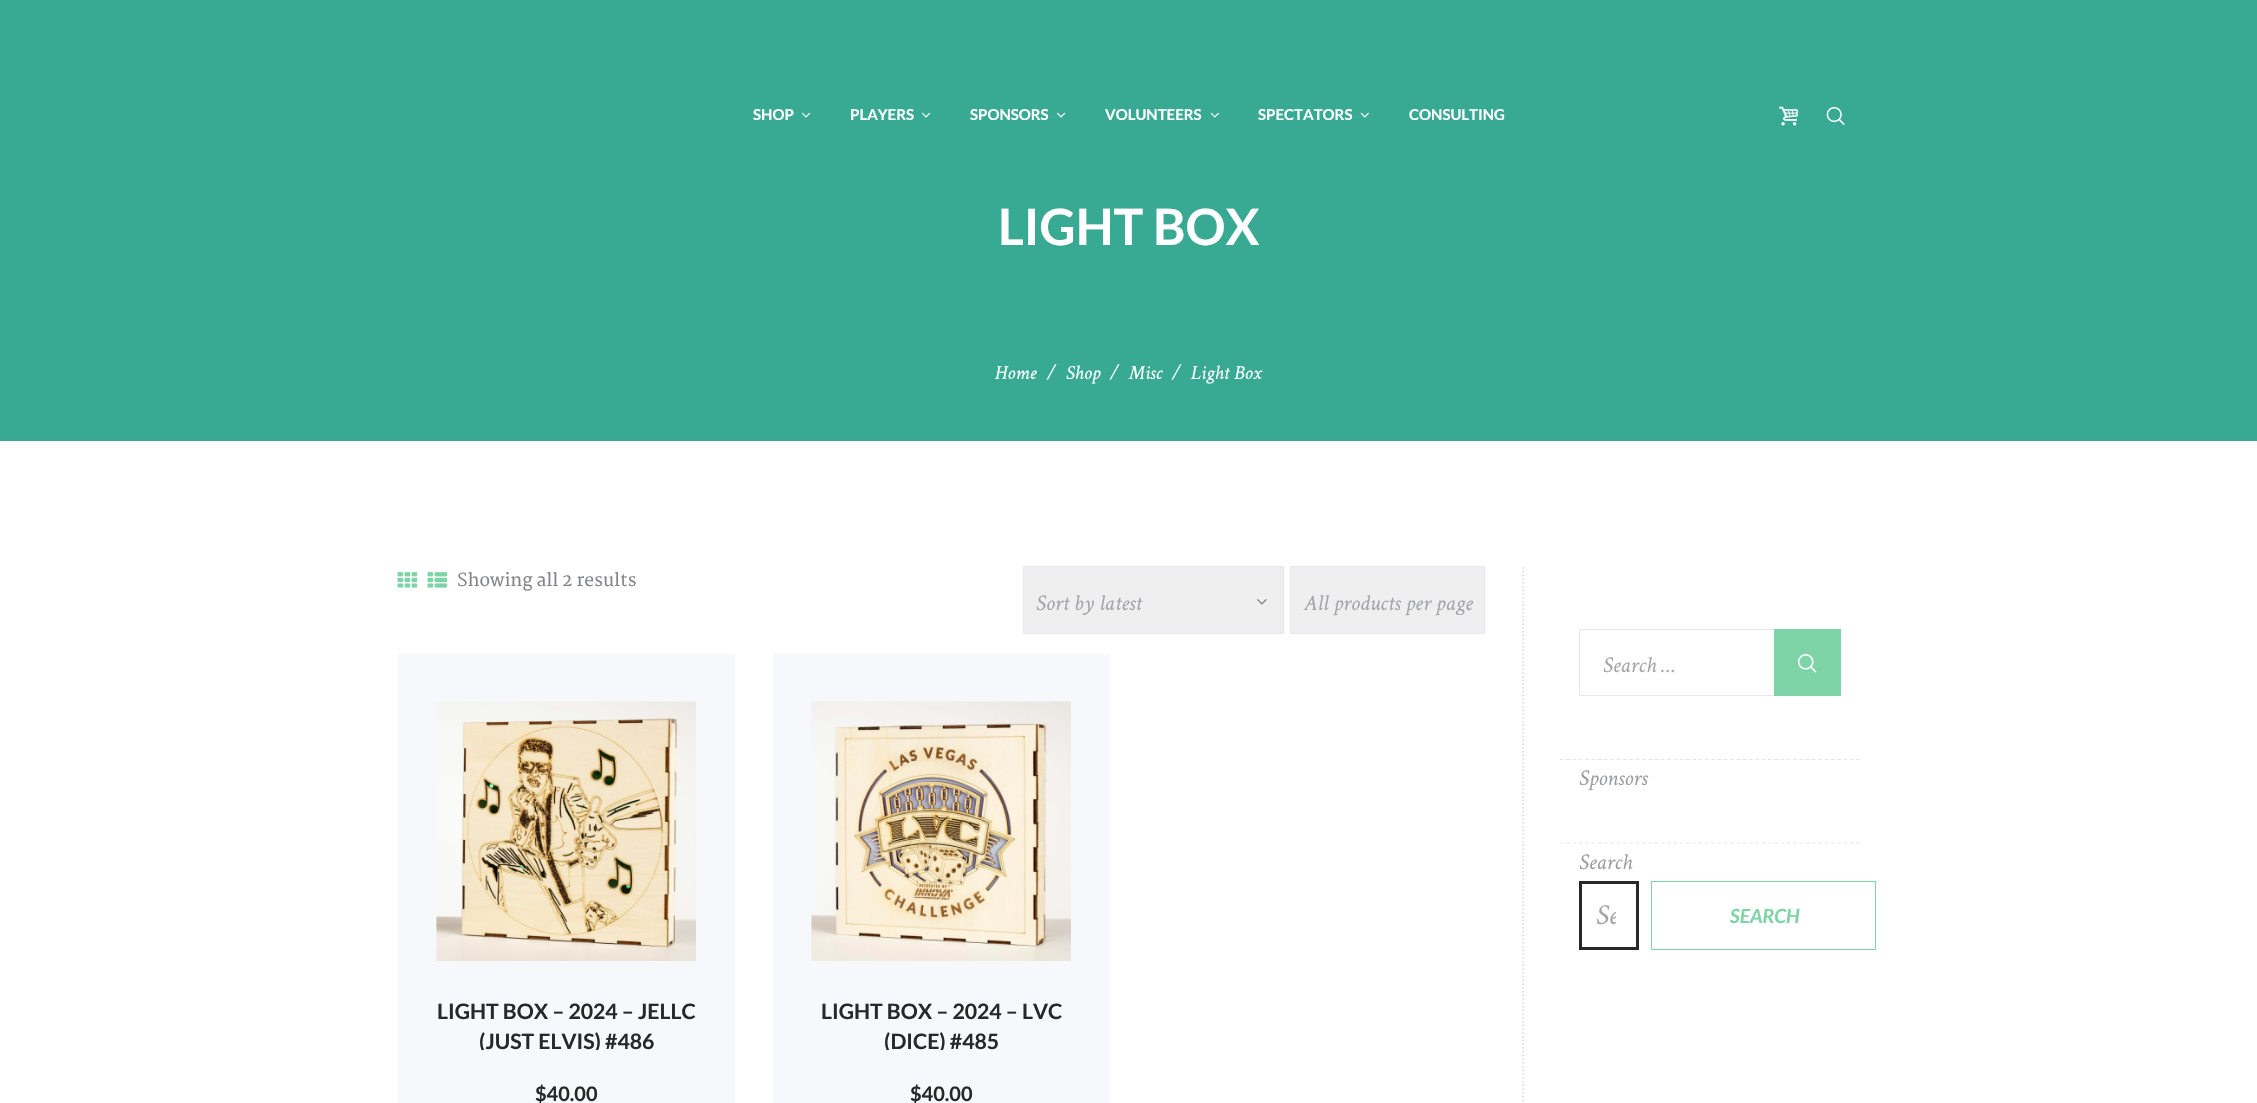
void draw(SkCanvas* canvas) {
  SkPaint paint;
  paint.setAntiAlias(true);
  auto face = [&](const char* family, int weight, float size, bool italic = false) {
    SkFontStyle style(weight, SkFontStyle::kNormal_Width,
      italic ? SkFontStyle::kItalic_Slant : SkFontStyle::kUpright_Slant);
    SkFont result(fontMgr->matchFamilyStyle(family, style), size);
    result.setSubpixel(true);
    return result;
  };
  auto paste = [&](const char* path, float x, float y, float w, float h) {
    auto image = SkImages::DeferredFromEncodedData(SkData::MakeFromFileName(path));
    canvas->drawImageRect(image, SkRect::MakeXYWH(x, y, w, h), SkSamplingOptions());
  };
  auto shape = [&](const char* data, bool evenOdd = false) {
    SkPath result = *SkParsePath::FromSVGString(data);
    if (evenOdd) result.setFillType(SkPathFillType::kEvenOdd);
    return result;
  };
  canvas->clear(0xffffffff);
  paint.setColor(0xff38aa93);
  canvas->drawRect(SkRect::MakeXYWH(0, 0, 2257, 441), paint);
  paste("img/1.png", 801, 112, 10, 6);
  paste("img/1.png", 921, 112, 10, 6);
  paste("img/1.png", 1056, 112, 10, 6);
  paste("img/2.png", 1210, 112, 9, 6);
  paste("img/2.png", 1360, 112, 9, 6);
  paste("img/3.png", 1779, 106, 19, 20);
  paste("img/4.png", 1826, 107, 19, 18);
  paste("img/5.png", 1522, 567, 2, 535);
  paste("img/6.png", 397, 572, 21, 16);
  paste("img/7.png", 427, 572, 21, 16);
  paint.setColor(0xffefefef);
  canvas->drawRect(SkRect::MakeXYWH(1023.5f, 566.5f, 260, 67), paint);
  paint.setStroke(true);
  paint.setStrokeWidth(1);
  paint.setColor(0xffe6e7ef);
  canvas->drawRect(SkRect::MakeXYWH(1023.5f, 566.5f, 260, 67), paint);
  paste("img/8.png", 1257, 599, 10, 6);
  paint.setStroke(false);
  paint.setColor(0xffefefef);
  canvas->drawRect(SkRect::MakeXYWH(1290.5f, 566.5f, 194, 67), paint);
  paint.setStroke(true);
  paint.setColor(0xffe6e7ef);
  canvas->drawRect(SkRect::MakeXYWH(1290.5f, 566.5f, 194, 67), paint);
  paint.setStroke(false);
  paint.setColor(0xfff7f8fc);
  canvas->drawRect(SkRect::MakeXYWH(398, 654, 337, 449), paint);
  paste("img/9.png", 436, 701, 260, 260);
  canvas->drawRect(SkRect::MakeXYWH(773, 654, 337, 449), paint);
  paste("img/10.png", 811, 701, 260, 260);
  paint.setStroke(true);
  paint.setColor(0xffe6e7ef);
  canvas->drawRect(SkRect::MakeXYWH(1579.5f, 629.5f, 261, 66), paint);
  paint.setStroke(false);
  paint.setColor(0xff7fd4a7);
  canvas->drawRect(SkRect::MakeXYWH(1774, 629, 67, 67), paint);
  paste("img/11.png", 1797, 654, 20, 19);
  paint.setStroke(true);
  paint.setStrokeWidth(1.2f);
  paint.setColor(0xffe4e7e8);
  paint.setPathEffect(SkDashPathEffect::Make({{3.75f, 2.55f}}, 0));
  canvas->drawPath(shape("M1560 759.5H1860"), paint);
  paint.setPathEffect(nullptr);
  paint.setPathEffect(SkDashPathEffect::Make({{3.75f, 2.55f}}, 0));
  canvas->drawPath(shape("M1560 843H1860"), paint);
  paint.setPathEffect(nullptr);
  paint.setStrokeWidth(3);
  paint.setColor(0xff282828);
  canvas->drawRect(SkRect::MakeXYWH(1580.5f, 882.5f, 57, 66), paint);
  paint.setStrokeWidth(1);
  paint.setColor(0xff7fd4a7);
  canvas->drawRect(SkRect::MakeXYWH(1651.5f, 881.5f, 224, 68), paint);
  auto f0 = face("Lato", 700, 15);
  paint.setStroke(false);
  paint.setColor(0xffffffff);
  {
    const struct { const char* s; float x, y; } items[] = {
      {"SHOP", 753, 120},
      {"PLAYERS", 850, 120},
      {"SPONSORS", 970, 120},
      {"VOLUNTEERS", 1105, 120},
      {"SPECTATORS", 1258, 120},
      {"CONSULTING", 1409, 120},
    };
    for (auto [s, x, y] : items) {
      canvas->drawString(s, x, y, f0, paint);
    }
  }
  auto f1 = face("Lato", 700, 50);
  canvas->drawString("LIGHT BOX", 998, 245, f1, paint);
  auto f2 = face("Crimson Text", 400, 20, true);
  {
    const struct { const char* s; float x, y; } items[] = {
      {"Home", 995, 379},
      {"/", 1047, 379},
      {"Shop", 1066, 379},
      {"/", 1110, 379},
      {"Misc", 1129, 379},
      {"/", 1172, 379},
      {"Light Box", 1191, 379},
    };
    for (auto [s, x, y] : items) {
      canvas->drawString(s, x, y, f2, paint);
    }
  }
  auto f3 = face("Martel", 600, 17.5f);
  paint.setColor(0xff838488);
  canvas->drawString("Showing all 2 results", 457, 586, f3, paint);
  auto f4 = face("Crimson Text", 400, 22.5f, true);
  paint.setColor(0xffa4a5a8);
  canvas->drawString("Sort by latest", 1036, 610, f4, paint);
  canvas->drawString("All products per page", 1304, 610, f4, paint);
  auto f5 = face("Lato", 700, 21.25f);
  paint.setColor(0xff282828);
  canvas->drawString("LIGHT BOX – 2024 – JELLC", 437, 1019, f5, paint);
  canvas->save();
  canvas->clipRect(SkRect::MakeXYWH(436, 996, 260, 54));
  canvas->drawString("(JUST ELVIS) #486", 479, 1049, f5, paint);
  canvas->restore();
  auto f6 = face("Lato", 700, 20);
  canvas->drawString("$40.00", 535, 1101, f6, paint);
  canvas->drawString("LIGHT BOX – 2024 – LVC", 821, 1019, f5, paint);
  canvas->save();
  canvas->clipRect(SkRect::MakeXYWH(811, 996, 260, 54));
  canvas->drawString("(DICE) #485", 884, 1049, f5, paint);
  canvas->restore();
  canvas->drawString("$40.00", 910, 1101, f6, paint);
  paint.setColor(0xffa4a5a8);
  canvas->drawString("Search …", 1603, 672, f4, paint);
  paint.setColor(0xff9c9da1);
  canvas->drawString("Sponsors", 1579, 785, f4, paint);
  canvas->drawString("Search", 1579, 869, f4, paint);
  canvas->save();
  canvas->clipRect(SkRect::MakeXYWH(1596, 896, 20, 38));
  auto f7 = face("Crimson Text", 400, 29, true);
  paint.setColor(0xffa4a5a8);
  canvas->drawString("Se", 1596, 924, f7, paint);
  canvas->restore();
  auto f8 = face("Lato", 700, 19.5f, true);
  paint.setColor(0xff7fd4a7);
  canvas->drawString("SEARCH", 1730, 923, f8, paint);
}
